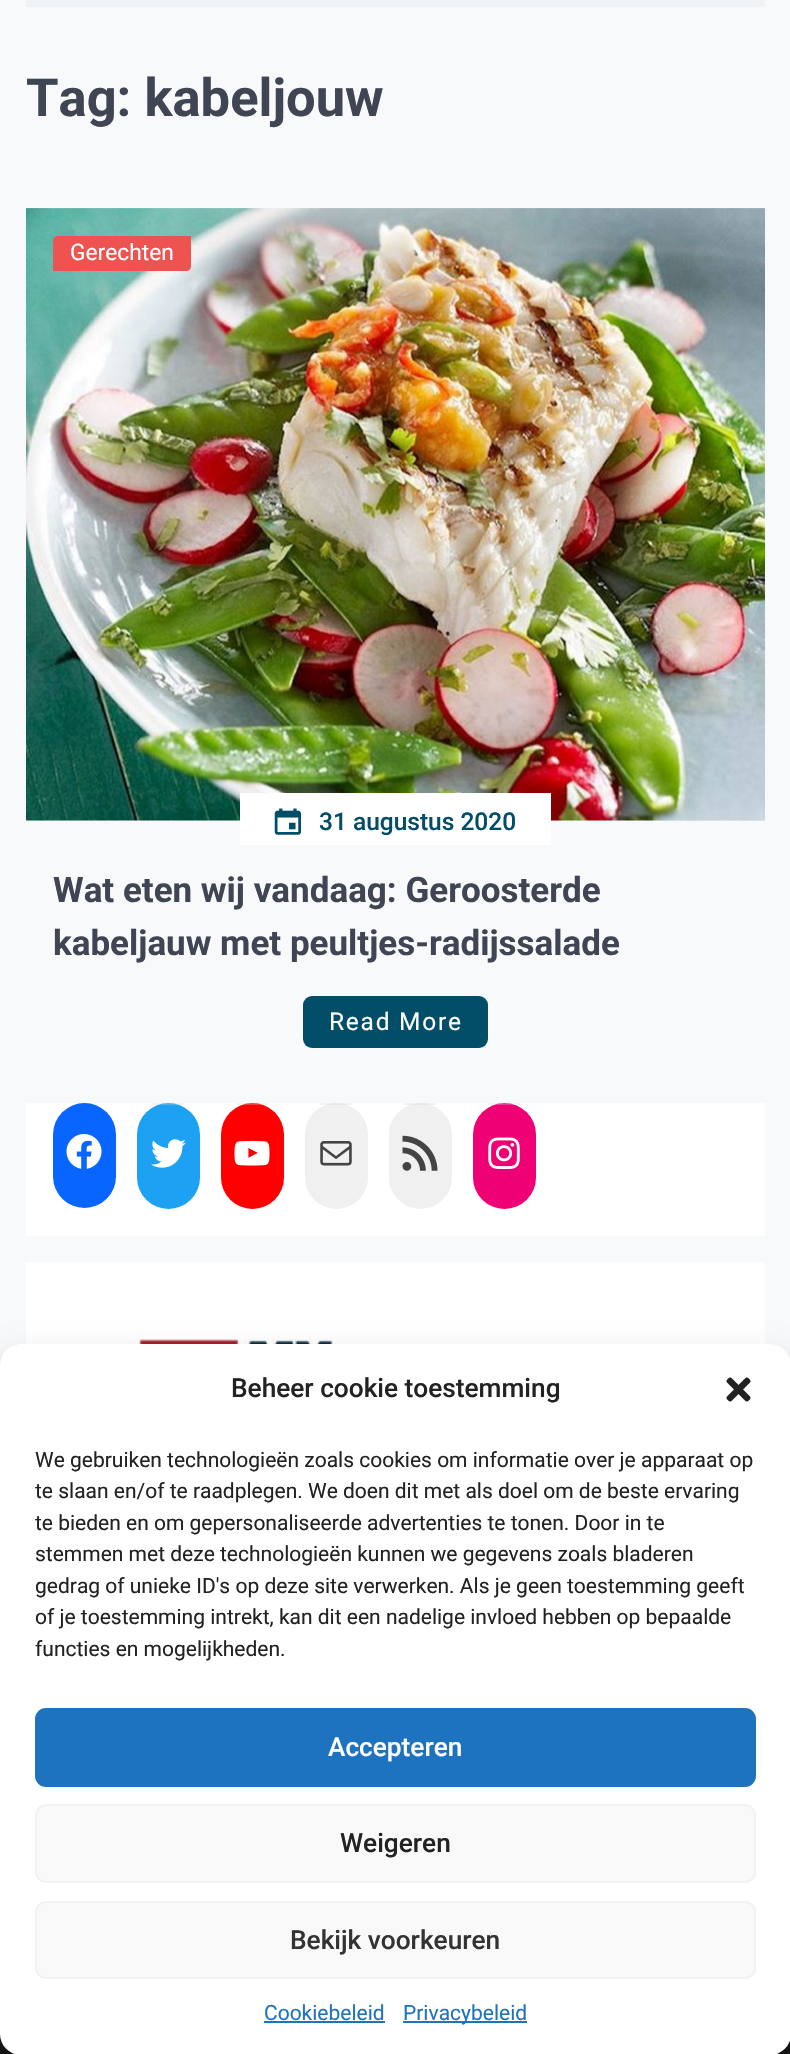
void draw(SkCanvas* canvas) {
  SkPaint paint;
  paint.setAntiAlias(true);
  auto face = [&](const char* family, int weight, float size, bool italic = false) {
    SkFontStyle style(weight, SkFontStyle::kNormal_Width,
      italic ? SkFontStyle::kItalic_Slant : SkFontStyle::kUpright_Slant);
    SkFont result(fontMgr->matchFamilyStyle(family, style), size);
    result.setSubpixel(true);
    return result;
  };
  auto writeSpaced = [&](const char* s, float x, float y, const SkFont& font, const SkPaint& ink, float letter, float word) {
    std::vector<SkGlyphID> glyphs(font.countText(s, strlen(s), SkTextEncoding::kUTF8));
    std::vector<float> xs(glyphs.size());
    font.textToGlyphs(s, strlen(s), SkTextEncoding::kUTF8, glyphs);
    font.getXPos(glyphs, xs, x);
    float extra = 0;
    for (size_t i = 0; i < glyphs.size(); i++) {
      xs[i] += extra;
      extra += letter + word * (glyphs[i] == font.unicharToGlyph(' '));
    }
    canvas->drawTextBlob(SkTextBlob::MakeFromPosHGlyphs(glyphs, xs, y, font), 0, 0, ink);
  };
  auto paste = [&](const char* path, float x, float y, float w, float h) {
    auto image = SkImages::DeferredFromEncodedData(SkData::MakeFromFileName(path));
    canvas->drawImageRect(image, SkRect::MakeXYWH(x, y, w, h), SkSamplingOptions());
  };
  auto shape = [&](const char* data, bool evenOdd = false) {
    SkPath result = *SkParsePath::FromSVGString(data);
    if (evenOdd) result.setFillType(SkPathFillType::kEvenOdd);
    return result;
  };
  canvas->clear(0xfff8f9fa);
  paint.setColor(0xffeff3f5);
  canvas->drawRect(SkRect::MakeXYWH(26, 0, 739, 7), paint);
  paint.setColor(0xffefecec);
  canvas->drawRect(SkRect::MakeXYWH(26, 208, 739, 613), paint);
  paste("img/1.png", 26, 208, 739, 613);
  paint.setColor(0xffef5350);
  canvas->drawPath(shape("M58 236H191V266C191 269 189 271 186 271H53V241C53 238 55 236 58 236Z"), paint);
  paint.setColor(0xffffffff);
  canvas->drawRect(SkRect::MakeXYWH(240, 793, 311, 52), paint);
  paste("img/2.png", 274, 808, 27, 27);
  paint.setColor(0xff024d68);
  canvas->drawRoundRect(SkRect::MakeXYWH(303, 996, 185, 52), 9, 9, paint);
  paint.setColor(0xffffffff);
  canvas->drawRect(SkRect::MakeXYWH(26, 1103, 739, 133), paint);
  paint.setColor(0xff0866ff);
  canvas->drawRoundRect(SkRect::MakeXYWH(53, 1103, 63, 105), 31.5f, 31.5f, paint);
  paste("img/3.png", 66, 1134, 36, 35);
  paint.setColor(0xff1da1f2);
  canvas->drawRoundRect(SkRect::MakeXYWH(137, 1103, 63, 106), 31.5f, 31.5f, paint);
  paint.setColor(0x4ad7d1d1);
  canvas->drawRect(SkRect::MakeXYWH(152, 1103, 32, 2), paint);
  paste("img/4.png", 151, 1139, 35, 29);
  paint.setColor(0xffff0000);
  canvas->drawRoundRect(SkRect::MakeXYWH(221, 1103, 63, 106), 31.5f, 31.5f, paint);
  paint.setColor(0x4ad7d1d1);
  canvas->drawRect(SkRect::MakeXYWH(236, 1103, 32, 2), paint);
  paste("img/5.png", 234, 1140, 36, 26);
  paint.setColor(0xfff0f0f0);
  canvas->drawRoundRect(SkRect::MakeXYWH(305, 1103, 63, 106), 31.5f, 31.5f, paint);
  paint.setColor(0x4ad7d1d1);
  canvas->drawRect(SkRect::MakeXYWH(320, 1103, 32, 2), paint);
  paste("img/6.png", 320, 1141, 32, 25);
  paint.setColor(0xfff0f0f0);
  canvas->drawRoundRect(SkRect::MakeXYWH(389, 1103, 63, 106), 31.5f, 31.5f, paint);
  paint.setColor(0x4ad7d1d1);
  canvas->drawRect(SkRect::MakeXYWH(404, 1103, 32, 2), paint);
  paste("img/7.png", 402, 1135, 36, 36);
  paint.setColor(0xfff00075);
  canvas->drawRoundRect(SkRect::MakeXYWH(473, 1103, 63, 106), 31.5f, 31.5f, paint);
  paint.setColor(0x4ad7d1d1);
  canvas->drawRect(SkRect::MakeXYWH(488, 1103, 32, 2), paint);
  paste("img/8.png", 488, 1137, 32, 32);
  paint.setColor(0xffffffff);
  canvas->drawRect(SkRect::MakeXYWH(26, 1262, 739, 82), paint);
  paste("img/9.png", 86, 1338, 614, 6);
  paint.setColor(0xff1a1a1a);
  canvas->drawRect(SkRect::MakeXYWH(0, 2034, 790, 20), paint);
  paint.setColor(0x3b000000);
  paint.setMaskFilter(SkMaskFilter::MakeBlur(kNormal_SkBlurStyle, 5));
  canvas->drawRoundRect(SkRect::MakeXYWH(0, 1355, 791, 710), 21, 21, paint);
  paint.setMaskFilter(nullptr);
  paint.setColor(0x30000000);
  paint.setMaskFilter(SkMaskFilter::MakeBlur(kNormal_SkBlurStyle, 17.5f));
  canvas->drawRoundRect(SkRect::MakeXYWH(0, 1362, 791, 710), 21, 21, paint);
  paint.setMaskFilter(nullptr);
  paint.setColor(0xffffffff);
  canvas->drawRoundRect(SkRect::MakeXYWH(0, 1344, 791, 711), 21, 21, paint);
  paste("img/10.png", 726, 1377, 25, 25);
  paint.setColor(0xff1e73be);
  canvas->drawRoundRect(SkRect::MakeXYWH(36, 1709, 719, 77), 10, 10, paint);
  paint.setStroke(true);
  paint.setStrokeWidth(2);
  canvas->drawRoundRect(SkRect::MakeXYWH(36, 1709, 719, 77), 10, 10, paint);
  paint.setStroke(false);
  paint.setColor(0xfff9f9f9);
  canvas->drawRoundRect(SkRect::MakeXYWH(36, 1805, 719, 77), 10, 10, paint);
  paint.setStroke(true);
  paint.setColor(0xfff2f2f2);
  canvas->drawRoundRect(SkRect::MakeXYWH(36, 1805, 719, 77), 10, 10, paint);
  paint.setStroke(false);
  paint.setColor(0xfff9f9f9);
  canvas->drawRoundRect(SkRect::MakeXYWH(36, 1902, 719, 76), 10, 10, paint);
  paint.setStroke(true);
  paint.setColor(0xfff2f2f2);
  canvas->drawRoundRect(SkRect::MakeXYWH(36, 1902, 719, 76), 10, 10, paint);
  paint.setStroke(false);
  paint.setColor(0xff1e73be);
  canvas->drawRect(SkRect::MakeXYWH(264, 2021, 121, 2), paint);
  canvas->drawRect(SkRect::MakeXYWH(403, 2021, 124, 2), paint);
  auto f0 = face("Roboto", 700, 52.5f);
  paint.setColor(0xff404553);
  canvas->drawString("Tag: kabeljouw", 26, 116, f0, paint);
  auto f1 = face("Roboto", 400, 22.75f);
  paint.setColor(0xffffffff);
  canvas->drawString("Gerechten", 70, 260, f1, paint);
  auto f2 = face("Roboto", 500, 24.5f);
  paint.setColor(0xff024d68);
  canvas->drawString("31 augustus 2020", 319, 830, f2, paint);
  auto f3 = face("Roboto", 700, 35);
  paint.setColor(0xff404553);
  canvas->drawString("Wat eten wij vandaag: Geroosterde", 53, 902, f3, paint);
  canvas->drawString("kabeljauw met peultjes-radijssalade", 53, 955, f3, paint);
  auto f4 = face("Roboto", 400, 24.5f);
  paint.setColor(0xffffffff);
  writeSpaced("Read More", 329, 1030, f4, paint, 1.75f, 0);
  auto f5 = face("Roboto", 500, 26.25f);
  paint.setColor(0xff222222);
  canvas->drawString("Beheer cookie toestemming", 231, 1397, f5, paint);
  auto f6 = face("Roboto", 400, 21);
  {
    const struct { const char* s; float x, y; } items[] = {
      {"We gebruiken technologieën zoals cookies om informatie over je apparaat op", 35, 1467},
      {"te slaan en/of te raadplegen. We doen dit met als doel om de beste ervaring", 35, 1498},
      {"te bieden en om gepersonaliseerde advertenties te tonen. Door in te", 35, 1530},
      {"stemmen met deze technologieën kunnen we gegevens zoals bladeren", 35, 1561},
      {"gedrag of unieke ID's op deze site verwerken. Als je geen toestemming geeft", 35, 1593},
      {"of je toestemming intrekt, kan dit een nadelige invloed hebben op bepaalde", 35, 1624},
      {"functies en mogelijkheden.", 35, 1656},
    };
    for (auto [s, x, y] : items) {
      canvas->drawString(s, x, y, f6, paint);
    }
  }
  paint.setColor(0xffffffff);
  canvas->drawString("Accepteren", 328, 1756, f5, paint);
  paint.setColor(0xff222222);
  canvas->drawString("Weigeren", 340, 1852, f5, paint);
  paint.setColor(0xff333333);
  canvas->drawString("Bekijk voorkeuren", 290, 1949, f5, paint);
  paint.setColor(0xff1e73be);
  canvas->drawString("Cookiebeleid", 264, 2020, f6, paint);
  canvas->drawString("Privacybeleid", 403, 2020, f6, paint);
}
